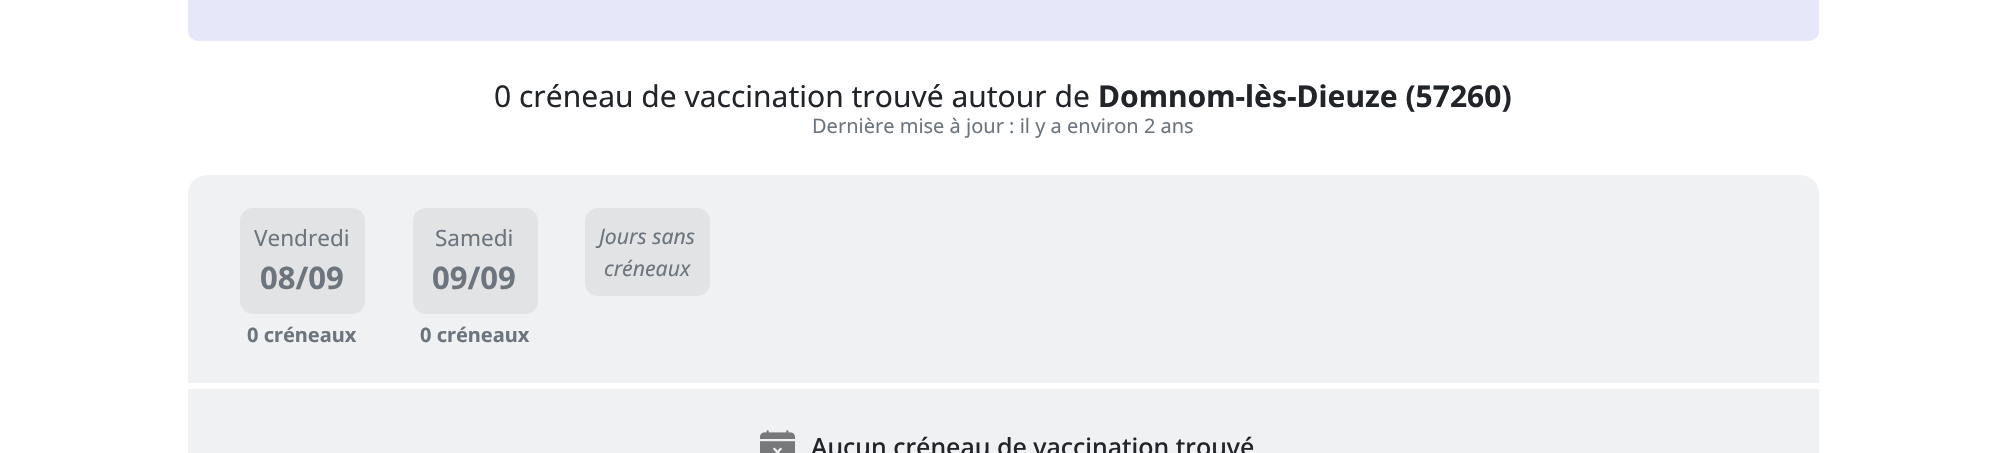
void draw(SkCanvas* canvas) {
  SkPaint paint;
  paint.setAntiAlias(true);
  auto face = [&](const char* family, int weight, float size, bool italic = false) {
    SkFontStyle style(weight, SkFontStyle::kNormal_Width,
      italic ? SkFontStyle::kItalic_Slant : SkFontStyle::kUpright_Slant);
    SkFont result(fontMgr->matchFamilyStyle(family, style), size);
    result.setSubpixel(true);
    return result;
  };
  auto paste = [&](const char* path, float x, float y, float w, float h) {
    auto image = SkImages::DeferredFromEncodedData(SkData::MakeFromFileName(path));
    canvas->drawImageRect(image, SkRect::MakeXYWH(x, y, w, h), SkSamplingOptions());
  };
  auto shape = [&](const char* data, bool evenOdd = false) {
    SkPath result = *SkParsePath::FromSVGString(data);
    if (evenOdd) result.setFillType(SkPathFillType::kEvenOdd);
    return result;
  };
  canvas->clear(0xffffffff);
  paint.setColor(0xffe6e7f9);
  canvas->drawRoundRect(SkRect::MakeXYWH(188, -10, 1631, 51), 10, 10, paint);
  paint.setColor(0xffeff1f3);
  canvas->drawPath(shape("M207 175H1800C1810.5 175 1819 183.5 1819 194V383H188V194C188 183.5 196.5 175 207 175Z"), paint);
  paint.setColor(0xffe2e3e5);
  canvas->drawRoundRect(SkRect::MakeXYWH(240, 208, 125, 106), 13, 13, paint);
  canvas->drawRoundRect(SkRect::MakeXYWH(413, 208, 125, 106), 13, 13, paint);
  canvas->drawRoundRect(SkRect::MakeXYWH(585, 208, 125, 88), 13, 13, paint);
  paint.setColor(0xffeff1f3);
  canvas->drawRect(SkRect::MakeXYWH(188, 389, 1631, 64), paint);
  paste("img/1.png", 760, 430, 35, 23);
  auto f0 = face("Noto Sans", 400, 30);
  paint.setColor(0xff212529);
  canvas->drawString("0 créneau de vaccination trouvé autour de", 494, 107, f0, paint);
  auto f1 = face("Noto Sans", 700, 30);
  canvas->drawString("Domnom-lès-Dieuze (57260)", 1098, 107, f1, paint);
  auto f2 = face("Noto Sans", 400, 20);
  paint.setColor(0xff6c757d);
  canvas->drawString("Dernière mise à jour : il y a environ 2 ans", 812, 133, f2, paint);
  auto f3 = face("Noto Sans", 400, 22.5f);
  canvas->drawString("Vendredi", 254, 246, f3, paint);
  auto f4 = face("Noto Sans", 700, 31);
  canvas->drawString("08/09", 260, 289, f4, paint);
  auto f5 = face("Noto Sans", 700, 20);
  canvas->drawString("0 créneaux", 247, 342, f5, paint);
  canvas->drawString("Samedi", 435, 246, f3, paint);
  canvas->drawString("09/09", 432, 289, f4, paint);
  canvas->drawString("0 créneaux", 420, 342, f5, paint);
  auto f6 = face("Noto Sans", 400, 21.25f, true);
  canvas->drawString("Jours sans", 599, 244, f6, paint);
  canvas->drawString("créneaux", 604, 276, f6, paint);
  auto f7 = face("Noto Sans", 500, 25);
  paint.setColor(0xff212529);
  canvas->drawString("Aucun créneau de vaccination trouvé", 811, 456, f7, paint);
}
